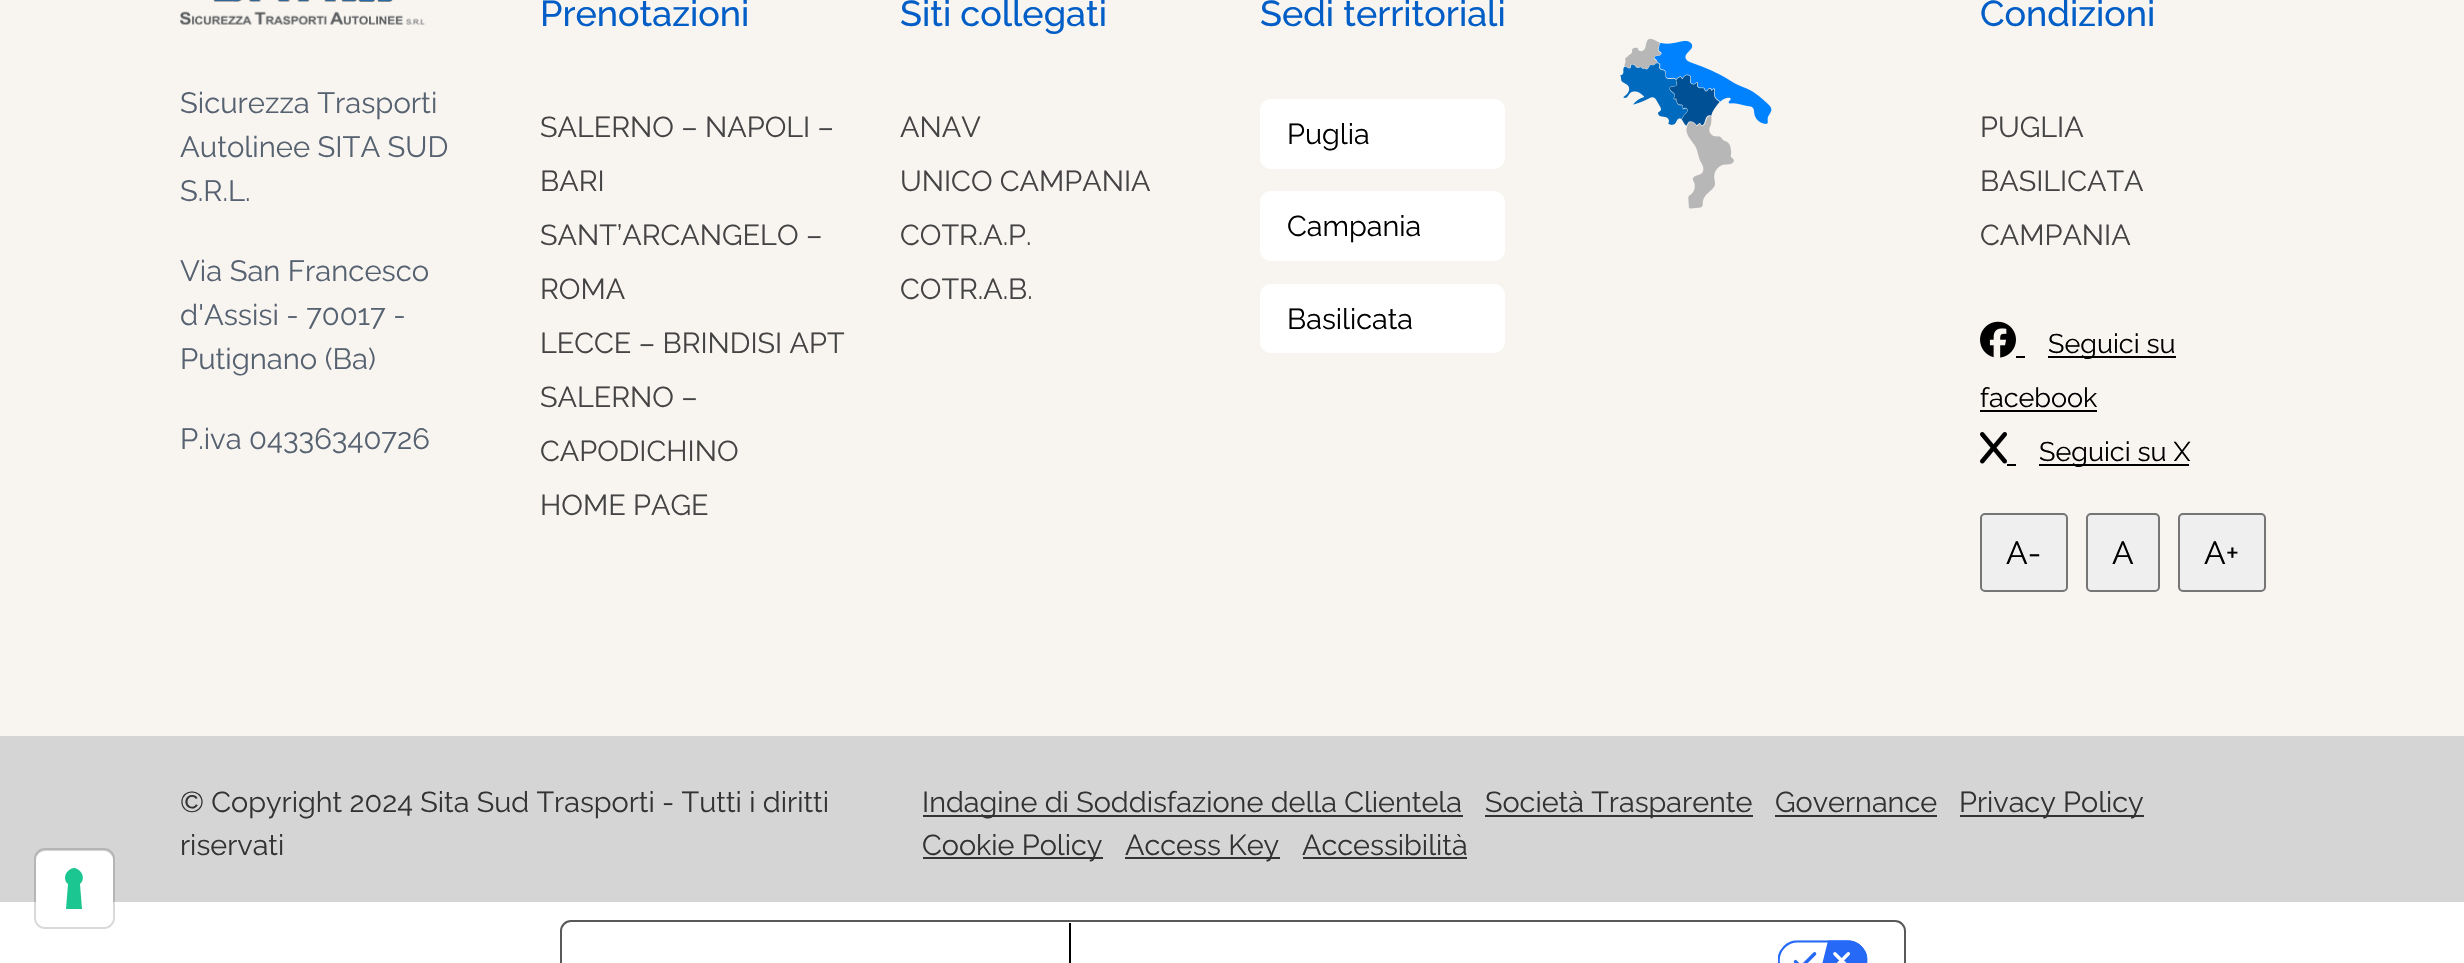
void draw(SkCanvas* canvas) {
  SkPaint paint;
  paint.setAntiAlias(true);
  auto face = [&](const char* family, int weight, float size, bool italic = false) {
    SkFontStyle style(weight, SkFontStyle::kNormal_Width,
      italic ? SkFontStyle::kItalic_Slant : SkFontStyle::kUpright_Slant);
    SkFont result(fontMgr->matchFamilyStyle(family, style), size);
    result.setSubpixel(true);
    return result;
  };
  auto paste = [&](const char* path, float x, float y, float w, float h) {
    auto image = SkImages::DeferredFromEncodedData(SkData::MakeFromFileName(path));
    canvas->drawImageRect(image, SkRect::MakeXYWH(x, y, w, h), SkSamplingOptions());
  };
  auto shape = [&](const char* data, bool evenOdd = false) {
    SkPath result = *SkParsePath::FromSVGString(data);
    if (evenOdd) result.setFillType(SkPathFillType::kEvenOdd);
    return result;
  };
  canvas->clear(0xffffffff);
  paint.setColor(0xfff8f5f1);
  canvas->drawRect(SkRect::MakeXYWH(0, 0, 2464, 736), paint);
  paste("img/1.png", 180, 0, 245, 25);
  paint.setColor(0xffffffff);
  canvas->drawRoundRect(SkRect::MakeXYWH(1260, 99, 245, 70), 11, 11, paint);
  canvas->drawRoundRect(SkRect::MakeXYWH(1260, 191, 245, 70), 11, 11, paint);
  canvas->drawRoundRect(SkRect::MakeXYWH(1260, 284, 245, 69), 11, 11, paint);
  paste("img/2.png", 1620, 38, 152, 171);
  paste("img/3.png", 1980, 321, 36, 37);
  {
    const struct { float x, y, w, h; SkColor color; } items[] = {
      {2016, 356, 9, 2, 0xff000000},
      {2048, 356, 128, 2, 0xff000000},
      {1980, 410, 117, 2, 0xff000000},
    };
    for (auto [x, y, w, h, color] : items) {
      paint.setColor(color);
      canvas->drawRect(SkRect::MakeXYWH(x, y, w, h), paint);
    }
  }
  paste("img/4.png", 1980, 432, 27, 32);
  canvas->drawRect(SkRect::MakeXYWH(2007, 464, 9, 2), paint);
  canvas->drawRect(SkRect::MakeXYWH(2039, 464, 150, 2), paint);
  paint.setColor(0xffefefef);
  canvas->drawRoundRect(SkRect::MakeXYWH(1981, 514, 86, 77), 4, 4, paint);
  paint.setStroke(true);
  paint.setStrokeWidth(2);
  paint.setColor(0xff767676);
  canvas->drawRoundRect(SkRect::MakeXYWH(1981, 514, 86, 77), 4, 4, paint);
  paint.setStroke(false);
  paint.setColor(0xffefefef);
  canvas->drawRoundRect(SkRect::MakeXYWH(2087, 514, 72, 77), 4, 4, paint);
  paint.setStroke(true);
  paint.setColor(0xff767676);
  canvas->drawRoundRect(SkRect::MakeXYWH(2087, 514, 72, 77), 4, 4, paint);
  paint.setStroke(false);
  paint.setColor(0xffefefef);
  canvas->drawRoundRect(SkRect::MakeXYWH(2179, 514, 86, 77), 4, 4, paint);
  paint.setStroke(true);
  paint.setColor(0xff767676);
  canvas->drawRoundRect(SkRect::MakeXYWH(2179, 514, 86, 77), 4, 4, paint);
  paint.setStroke(false);
  {
    const struct { float x, y, w, h; SkColor color; } items[] = {
      {0, 736, 2464, 166, 0xffd5d5d5},
      {923, 815, 540, 2, 0xff333333},
      {1485, 815, 268, 2, 0xff333333},
      {1775, 815, 162, 2, 0xff333333},
      {1960, 815, 184, 2, 0xff333333},
      {923, 857, 180, 2, 0xff333333},
      {1125, 857, 155, 2, 0xff333333},
      {1303, 857, 164, 2, 0xff333333},
    };
    for (auto [x, y, w, h, color] : items) {
      paint.setColor(color);
      canvas->drawRect(SkRect::MakeXYWH(x, y, w, h), paint);
    }
  }
  paint.setStroke(true);
  paint.setColor(0x26000000);
  canvas->drawRoundRect(SkRect::MakeXYWH(35, 849, 79, 79), 10, 10, paint);
  paint.setStroke(false);
  paint.setColor(0xffffffff);
  canvas->drawRoundRect(SkRect::MakeXYWH(36, 851, 77, 76), 9, 9, paint);
  paint.setColor(0xff1cc691);
  canvas->drawPath(shape("M74 868C82 869 86 879 80 884L82 909H66L68 884C62 879 66 869 74 868Z", true), paint);
  paint.setStroke(true);
  paint.setColor(0xff595959);
  canvas->drawRoundRect(SkRect::MakeXYWH(561, 921, 1344, 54), 10, 10, paint);
  paint.setStroke(false);
  paint.setColor(0xff000000);
  canvas->drawRect(SkRect::MakeXYWH(1069, 923, 2, 40), paint);
  paste("img/5.png", 1778, 940, 90, 23);
  auto f0 = face("Raleway", 400, 29.25f);
  paint.setColor(0xff576271);
  {
    const struct { const char* s; float x, y; } items[] = {
      {"Sicurezza Trasporti", 180, 113},
      {"Autolinee SITA SUD", 180, 157},
      {"S.R.L.", 180, 201},
      {"Via San Francesco", 180, 281},
      {"d'Assisi - 70017 -", 180, 325},
      {"Putignano (Ba)", 180, 369},
      {"P.iva 04336340726", 180, 449},
    };
    for (auto [s, x, y] : items) {
      canvas->drawString(s, x, y, f0, paint);
    }
  }
  auto f1 = face("Raleway", 500, 36);
  paint.setColor(0xff025ec7);
  canvas->drawString("Prenotazioni", 540, 26, f1, paint);
  auto f2 = face("Raleway", 400, 28.8f);
  paint.setColor(0xff444444);
  {
    const struct { const char* s; float x, y; } items[] = {
      {"SALERNO – NAPOLI –", 540, 137},
      {"BARI", 540, 191},
      {"SANT’ARCANGELO –", 540, 245},
      {"ROMA", 540, 299},
      {"LECCE – BRINDISI APT", 540, 353},
      {"SALERNO –", 540, 407},
      {"CAPODICHINO", 540, 461},
      {"HOME PAGE", 540, 515},
    };
    for (auto [s, x, y] : items) {
      canvas->drawString(s, x, y, f2, paint);
    }
  }
  paint.setColor(0xff025ec7);
  canvas->drawString("Siti collegati", 900, 26, f1, paint);
  paint.setColor(0xff444444);
  {
    const struct { const char* s; float x, y; } items[] = {
      {"ANAV", 900, 137},
      {"UNICO CAMPANIA", 900, 191},
      {"COTR.A.P.", 900, 245},
      {"COTR.A.B.", 900, 299},
    };
    for (auto [s, x, y] : items) {
      canvas->drawString(s, x, y, f2, paint);
    }
  }
  paint.setColor(0xff025ec7);
  canvas->drawString("Sedi territoriali", 1260, 26, f1, paint);
  paint.setColor(0xff000000);
  {
    const struct { const char* s; float x, y; } items[] = {
      {"Puglia", 1287, 144},
      {"Campania", 1287, 236},
      {"Basilicata", 1287, 329},
    };
    for (auto [s, x, y] : items) {
      canvas->drawString(s, x, y, f2, paint);
    }
  }
  paint.setColor(0xff025ec7);
  canvas->drawString("Condizioni", 1980, 26, f1, paint);
  paint.setColor(0xff444444);
  {
    const struct { const char* s; float x, y; } items[] = {
      {"PUGLIA", 1980, 137},
      {"BASILICATA", 1980, 191},
      {"CAMPANIA", 1980, 245},
    };
    for (auto [s, x, y] : items) {
      canvas->drawString(s, x, y, f2, paint);
    }
  }
  auto f3 = face("Raleway", 400, 27);
  paint.setColor(0xff000000);
  {
    const struct { const char* s; float x, y; } items[] = {
      {"Seguici su", 2048, 353},
      {"facebook", 1980, 407},
      {"Seguici su X", 2039, 461},
    };
    for (auto [s, x, y] : items) {
      canvas->drawString(s, x, y, f3, paint);
    }
  }
  auto f4 = face("Raleway", 400, 32);
  {
    const struct { const char* s; float x, y; } items[] = {
      {"A-", 2006, 564},
      {"A", 2112, 564},
      {"A+", 2204, 564},
    };
    for (auto [s, x, y] : items) {
      canvas->drawString(s, x, y, f4, paint);
    }
  }
  paint.setColor(0xff333333);
  {
    const struct { const char* s; float x, y; } items[] = {
      {"© Copyright 2024 Sita Sud Trasporti - Tutti i diritti", 180, 812},
      {"riservati", 180, 855},
      {"Indagine di Soddisfazione della Clientela", 922, 812},
      {"Società Trasparente", 1485, 812},
      {"Governance", 1775, 812},
      {"Privacy Policy", 1959, 812},
      {"Cookie Policy", 922, 855},
      {"Access Key", 1125, 855},
      {"Accessibilità", 1302, 855},
    };
    for (auto [s, x, y] : items) {
      canvas->drawString(s, x, y, f2, paint);
    }
  }
}
